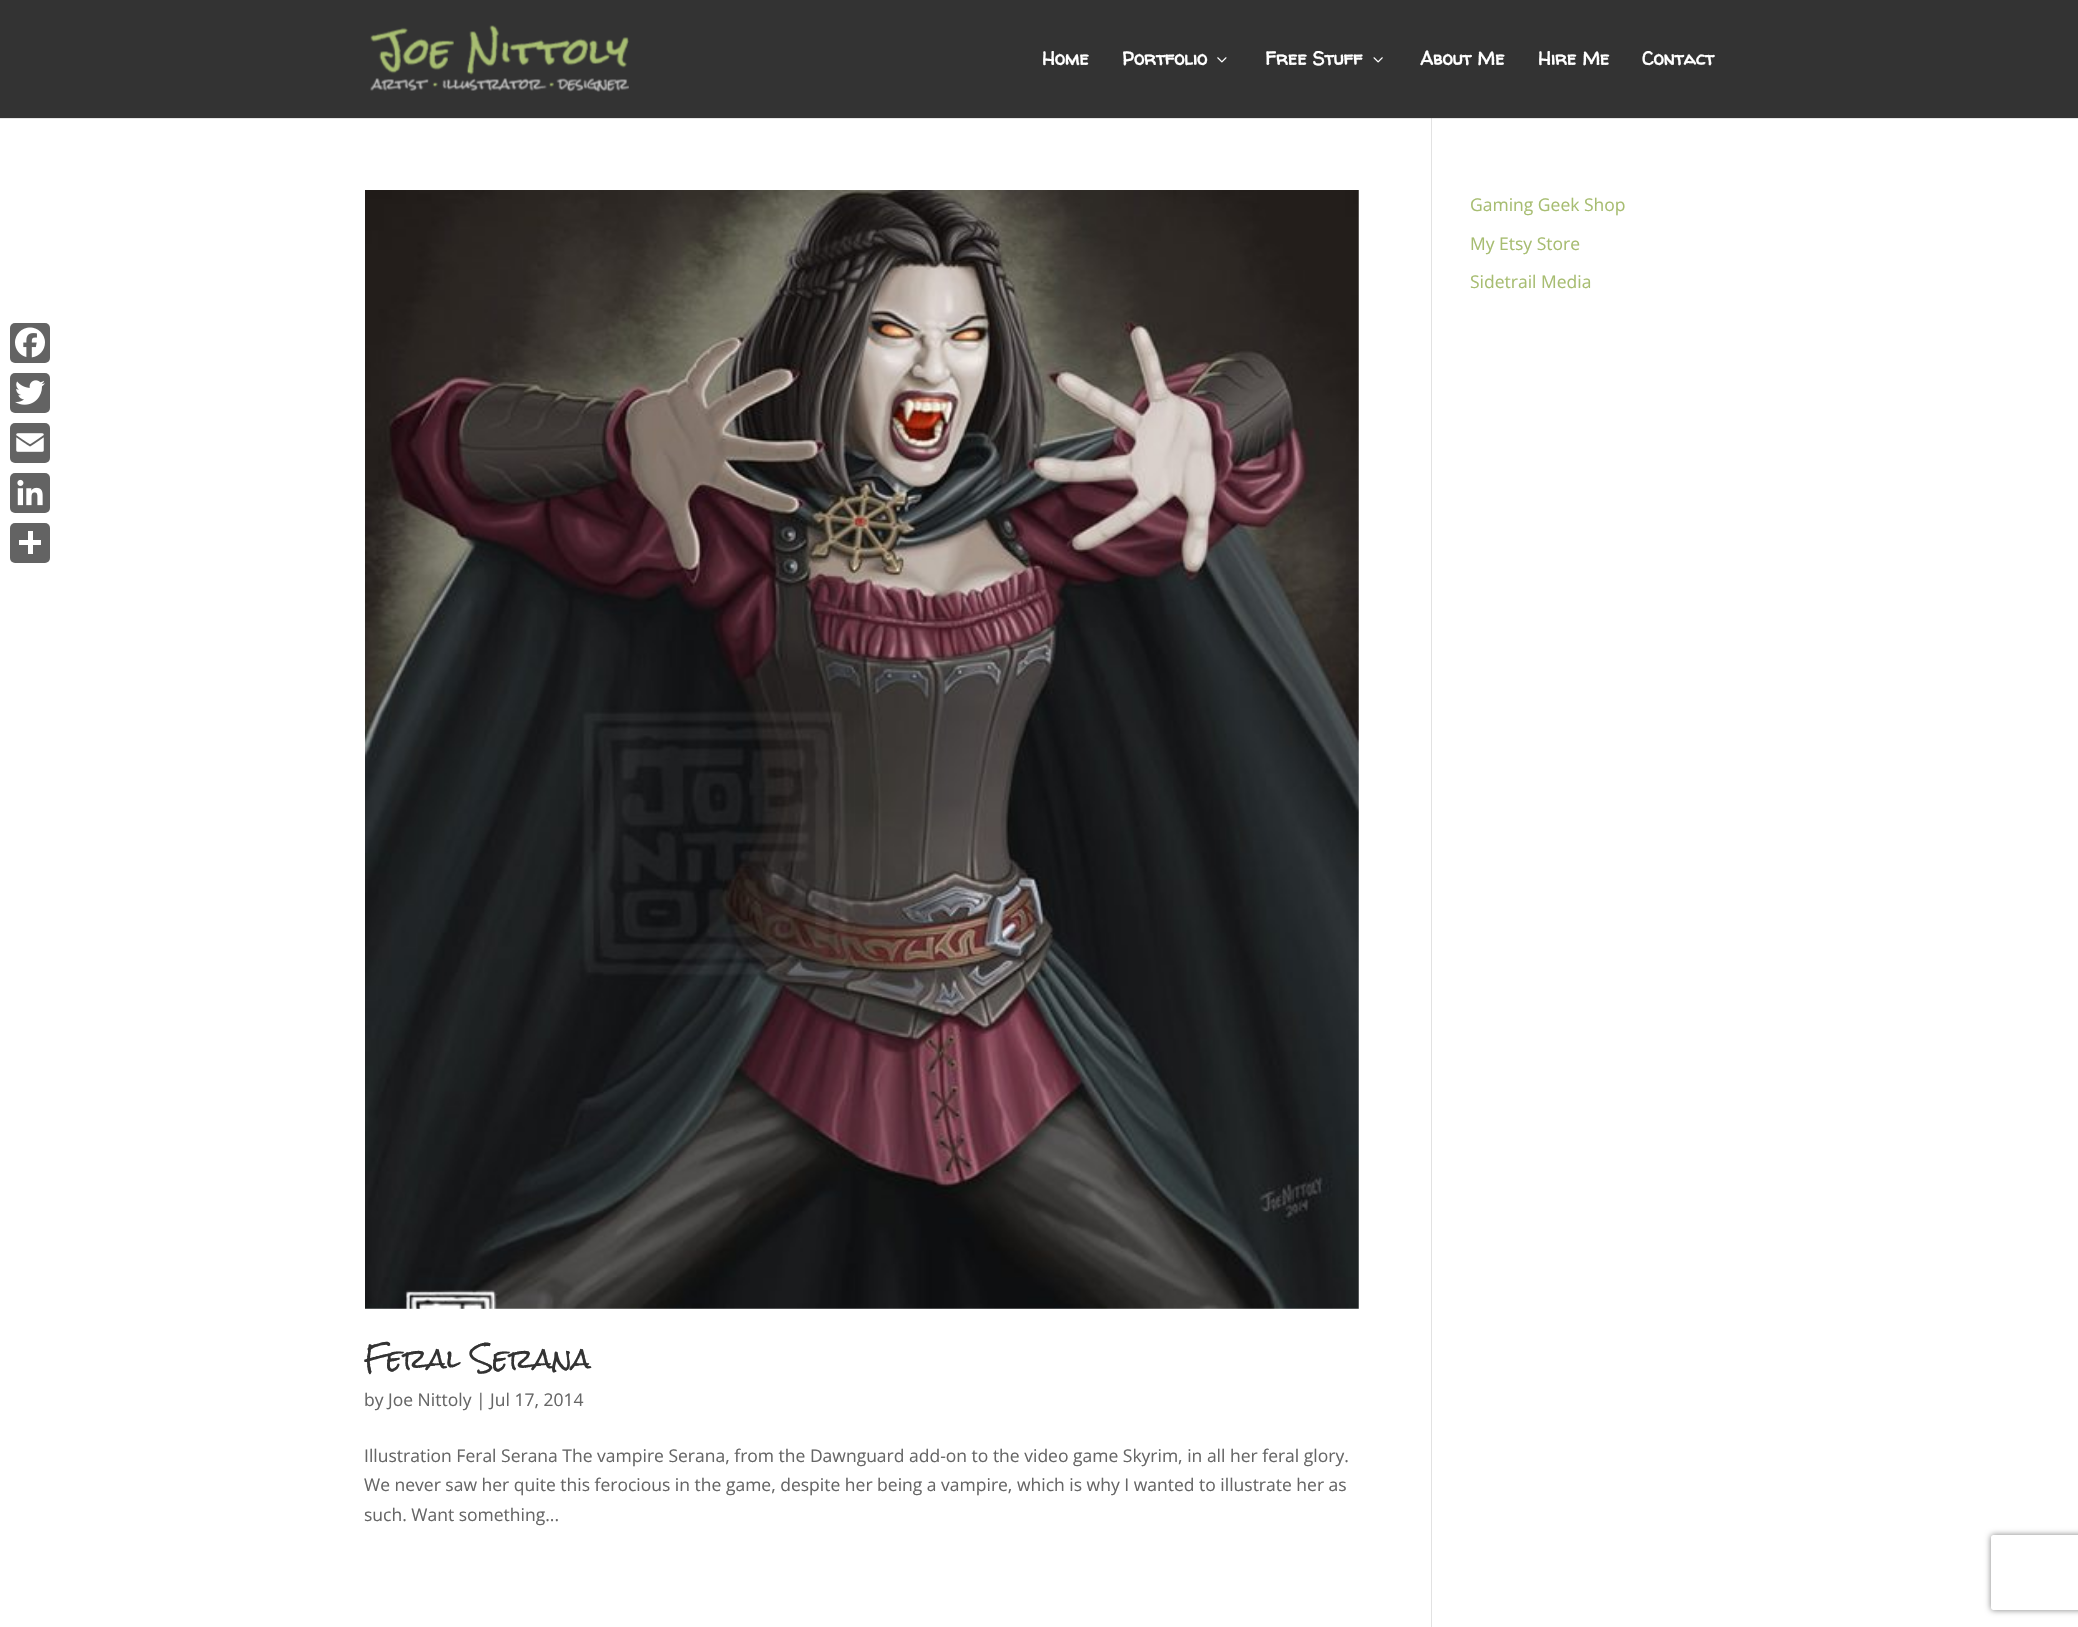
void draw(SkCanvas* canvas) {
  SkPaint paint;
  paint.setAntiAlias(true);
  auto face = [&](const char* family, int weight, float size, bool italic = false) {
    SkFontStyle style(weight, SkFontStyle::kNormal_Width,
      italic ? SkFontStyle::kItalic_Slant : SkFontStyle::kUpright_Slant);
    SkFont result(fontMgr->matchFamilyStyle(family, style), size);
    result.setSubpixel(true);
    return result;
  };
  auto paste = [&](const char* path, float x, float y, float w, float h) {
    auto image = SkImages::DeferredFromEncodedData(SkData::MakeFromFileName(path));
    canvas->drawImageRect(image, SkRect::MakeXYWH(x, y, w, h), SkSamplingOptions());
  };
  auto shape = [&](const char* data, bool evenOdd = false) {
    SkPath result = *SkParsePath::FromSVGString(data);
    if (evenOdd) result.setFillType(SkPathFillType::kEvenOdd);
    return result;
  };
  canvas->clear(0xffffffff);
  paint.setColor(0xff636363);
  canvas->drawRoundRect(SkRect::MakeXYWH(10, 323, 40, 40), 5, 5, paint);
  paste("img/1.png", 15, 327, 30, 31);
  canvas->drawRoundRect(SkRect::MakeXYWH(10, 373, 40, 40), 5, 5, paint);
  paste("img/2.png", 15, 380, 30, 25);
  canvas->drawRoundRect(SkRect::MakeXYWH(10, 423, 40, 40), 5, 5, paint);
  paste("img/3.png", 16, 433, 28, 19);
  canvas->drawRoundRect(SkRect::MakeXYWH(10, 473, 40, 40), 5, 5, paint);
  paste("img/4.png", 17, 479, 26, 27);
  canvas->drawRoundRect(SkRect::MakeXYWH(10, 523, 40, 40), 5, 5, paint);
  {
    const struct { float x, y, w, h; SkColor color; } items[] = {
      {28, 531, 5, 23, 0xffffffff},
      {19, 540, 22, 5, 0xffffffff},
      {1431, 118, 1, 1509, 0xffe2e2e2},
    };
    for (auto [x, y, w, h, color] : items) {
      paint.setColor(color);
      canvas->drawRect(SkRect::MakeXYWH(x, y, w, h), paint);
    }
  }
  paint.setColor(0x1a000000);
  canvas->drawPath(shape("M0 118V119H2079V1V118Z"), paint);
  paint.setColor(0xff333333);
  canvas->drawRect(SkRect::MakeXYWH(0, 0, 2078, 118), paint);
  paste("img/5.png", 370, 25, 259, 67);
  paste("img/6.png", 1217, 57, 10, 6);
  paste("img/7.png", 1373, 57, 10, 6);
  paste("img/8.png", 365, 190, 994, 1119);
  canvas->save();
  canvas->clipPath(shape("M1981 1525H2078V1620H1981ZM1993.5 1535H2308.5C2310 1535 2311 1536 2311 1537.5V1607.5C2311 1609 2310 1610 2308.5 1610H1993.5C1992 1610 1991 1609 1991 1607.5V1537.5C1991 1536 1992 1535 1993.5 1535Z", true), true);
  paint.setColor(0xff808080);
  paint.setMaskFilter(SkMaskFilter::MakeBlur(kNormal_SkBlurStyle, 3));
  canvas->drawRoundRect(SkRect::MakeXYWH(1991, 1535, 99, 75), 2.5f, 2.5f, paint);
  paint.setMaskFilter(nullptr);
  canvas->restore();
  auto f0 = face("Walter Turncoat", 700, 18.75f);
  paint.setColor(0xffffffff);
  {
    const struct { const char* s; float x, y; } items[] = {
      {"Home", 1042, 65},
      {"Portfolio", 1122, 65},
      {"Free Stuff", 1265, 65},
      {"About Me", 1420, 65},
      {"Hire Me", 1538, 65},
      {"Contact", 1642, 65},
    };
    for (auto [s, x, y] : items) {
      canvas->drawString(s, x, y, f0, paint);
    }
  }
  auto f1 = face("Open Sans", 400, 17.5f);
  paint.setColor(0xffa7bd71);
  {
    const struct { const char* s; float x, y; } items[] = {
      {"Gaming Geek Shop", 1470, 211},
      {"My Etsy Store", 1470, 250},
      {"Sidetrail Media", 1470, 288},
    };
    for (auto [s, x, y] : items) {
      canvas->drawString(s, x, y, f1, paint);
    }
  }
  auto f2 = face("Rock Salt", 400, 26.25f);
  paint.setColor(0xff333333);
  canvas->drawString("Feral Serana", 364, 1369, f2, paint);
  paint.setColor(0xff666666);
  {
    const struct { const char* s; float x, y; } items[] = {
      {"by Joe Nittoly | Jul 17, 2014", 364, 1406},
      {"Illustration Feral Serana The vampire Serana, from the Dawnguard add-on to the video game Skyrim, in all her feral glory.", 364, 1462},
      {"We never saw her quite this ferocious in the game, despite her being a vampire, which is why I wanted to illustrate her as", 364, 1491},
      {"such. Want something...", 364, 1521},
    };
    for (auto [s, x, y] : items) {
      canvas->drawString(s, x, y, f1, paint);
    }
  }
}
